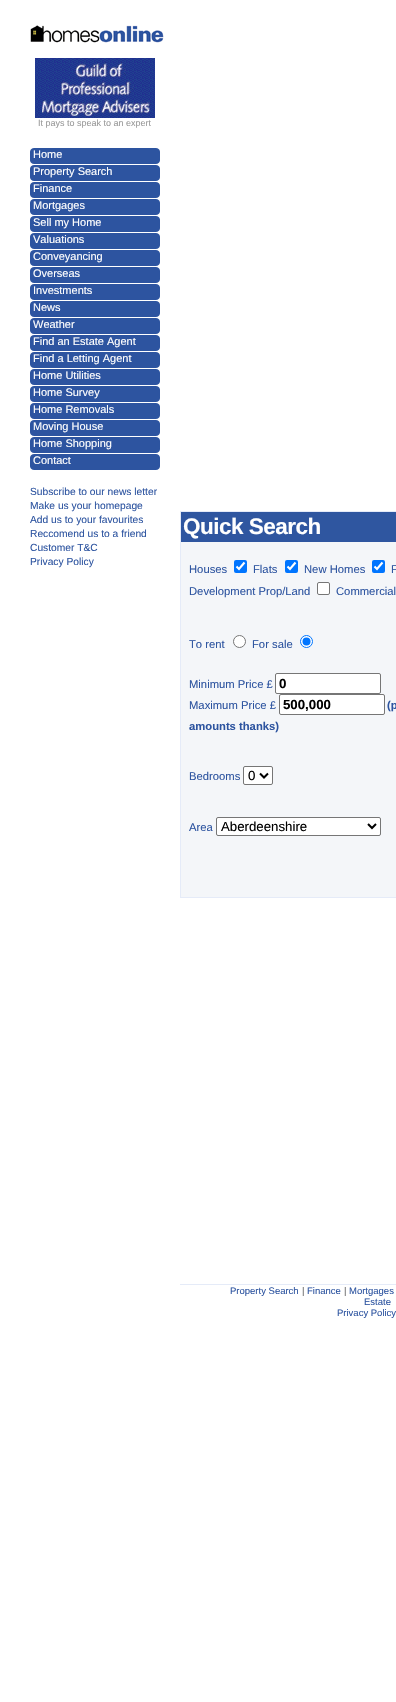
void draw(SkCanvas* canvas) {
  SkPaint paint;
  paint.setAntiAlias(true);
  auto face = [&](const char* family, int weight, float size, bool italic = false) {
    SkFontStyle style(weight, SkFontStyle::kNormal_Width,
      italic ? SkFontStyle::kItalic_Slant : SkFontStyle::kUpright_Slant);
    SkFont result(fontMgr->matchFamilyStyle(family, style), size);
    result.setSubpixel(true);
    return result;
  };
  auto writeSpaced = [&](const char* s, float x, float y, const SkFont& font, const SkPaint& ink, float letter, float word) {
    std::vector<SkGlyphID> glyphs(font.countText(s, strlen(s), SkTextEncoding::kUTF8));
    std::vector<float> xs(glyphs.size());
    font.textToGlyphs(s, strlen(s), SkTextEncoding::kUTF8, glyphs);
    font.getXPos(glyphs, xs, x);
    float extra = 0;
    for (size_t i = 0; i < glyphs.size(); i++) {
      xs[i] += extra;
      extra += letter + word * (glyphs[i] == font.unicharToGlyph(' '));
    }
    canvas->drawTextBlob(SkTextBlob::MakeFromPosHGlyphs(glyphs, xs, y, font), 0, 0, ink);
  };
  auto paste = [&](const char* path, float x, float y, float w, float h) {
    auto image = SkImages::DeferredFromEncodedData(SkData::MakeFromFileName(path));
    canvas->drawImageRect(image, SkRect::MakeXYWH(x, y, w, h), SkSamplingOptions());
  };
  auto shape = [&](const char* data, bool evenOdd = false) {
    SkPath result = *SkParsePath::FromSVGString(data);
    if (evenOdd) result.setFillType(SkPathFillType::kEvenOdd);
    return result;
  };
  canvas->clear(0xffffffff);
  paste("img/1.png", 30, 25, 134, 18);
  paste("img/2.png", 35, 58, 120, 60);
  paste("img/3.png", 30, 148, 130, 16);
  paste("img/3.png", 30, 165, 130, 16);
  paste("img/3.png", 30, 182, 130, 16);
  paste("img/3.png", 30, 199, 130, 16);
  paste("img/3.png", 30, 216, 130, 16);
  paste("img/3.png", 30, 233, 130, 16);
  paste("img/3.png", 30, 250, 130, 16);
  paste("img/3.png", 30, 267, 130, 16);
  paste("img/3.png", 30, 284, 130, 16);
  paste("img/3.png", 30, 301, 130, 16);
  paste("img/3.png", 30, 318, 130, 16);
  paste("img/3.png", 30, 335, 130, 16);
  paste("img/3.png", 30, 352, 130, 16);
  paste("img/3.png", 30, 369, 130, 16);
  paste("img/3.png", 30, 386, 130, 16);
  paste("img/3.png", 30, 403, 130, 16);
  paste("img/3.png", 30, 420, 130, 16);
  paste("img/3.png", 30, 437, 130, 16);
  paste("img/3.png", 30, 454, 130, 16);
  paint.setColor(0xfff4f6f9);
  canvas->drawRect(SkRect::MakeXYWH(181, 542, 215, 355), paint);
  paint.setStroke(true);
  paint.setStrokeWidth(1);
  paint.setColor(0xffe5ebf8);
  canvas->drawRect(SkRect::MakeXYWH(180.5f, 511.5f, 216, 386), paint);
  paint.setStroke(false);
  paint.setColor(0xff2f56a0);
  canvas->drawRect(SkRect::MakeXYWH(181, 512, 215, 30), paint);
  paint.setColor(0xff0075ff);
  canvas->drawRoundRect(SkRect::MakeXYWH(234, 560, 13, 13), 2, 2, paint);
  paint.setStroke(true);
  paint.setStrokeWidth(2.1f);
  paint.setColor(0xffffffff);
  canvas->drawPath(shape("M236.5 566.5L239 569L244.5 562.5"), paint);
  paint.setStroke(false);
  paint.setColor(0xff0075ff);
  canvas->drawRoundRect(SkRect::MakeXYWH(285, 560, 13, 13), 2, 2, paint);
  paint.setStroke(true);
  paint.setColor(0xffffffff);
  canvas->drawPath(shape("M287.5 566.5L290 569L295.5 562.5"), paint);
  paint.setStroke(false);
  paint.setColor(0xff0075ff);
  canvas->drawRoundRect(SkRect::MakeXYWH(372, 560, 13, 13), 2, 2, paint);
  paint.setStroke(true);
  paint.setColor(0xffffffff);
  canvas->drawPath(shape("M374.5 566.5L377 569L382.5 562.5"), paint);
  paint.setStroke(false);
  canvas->drawRoundRect(SkRect::MakeXYWH(317.5f, 582.5f, 12, 12), 1.5f, 1.5f, paint);
  paint.setStroke(true);
  paint.setStrokeWidth(1);
  paint.setColor(0xff767676);
  canvas->drawRoundRect(SkRect::MakeXYWH(317.5f, 582.5f, 12, 12), 1.5f, 1.5f, paint);
  paint.setStroke(false);
  paint.setColor(0xffffffff);
  canvas->drawCircle(239.5f, 641.5f, 6, paint);
  paint.setStroke(true);
  paint.setColor(0xff767676);
  canvas->drawCircle(239.5f, 641.5f, 6, paint);
  paint.setStroke(false);
  paint.setColor(0xffffffff);
  canvas->drawCircle(306.5f, 641.5f, 6, paint);
  paint.setStroke(true);
  paint.setColor(0xff0075ff);
  canvas->drawCircle(306.5f, 641.5f, 6, paint);
  paint.setStroke(false);
  canvas->drawCircle(306.5f, 641.5f, 4, paint);
  paint.setColor(0xffffffff);
  canvas->drawRoundRect(SkRect::MakeXYWH(275.5f, 673.5f, 105, 20), 1.5f, 1.5f, paint);
  paint.setStroke(true);
  paint.setColor(0xff767676);
  canvas->drawRoundRect(SkRect::MakeXYWH(275.5f, 673.5f, 105, 20), 1.5f, 1.5f, paint);
  paint.setStroke(false);
  paint.setColor(0xffffffff);
  canvas->drawRoundRect(SkRect::MakeXYWH(279.5f, 694.5f, 105, 20), 1.5f, 1.5f, paint);
  paint.setStroke(true);
  paint.setColor(0xff767676);
  canvas->drawRoundRect(SkRect::MakeXYWH(279.5f, 694.5f, 105, 20), 1.5f, 1.5f, paint);
  paint.setStroke(false);
  paint.setColor(0xffffffff);
  canvas->drawRoundRect(SkRect::MakeXYWH(243.5f, 766.5f, 29, 18), 1.5f, 1.5f, paint);
  paint.setStroke(true);
  paint.setColor(0xff767676);
  canvas->drawRoundRect(SkRect::MakeXYWH(243.5f, 766.5f, 29, 18), 1.5f, 1.5f, paint);
  paint.setStrokeWidth(2);
  paint.setColor(0xff000000);
  canvas->drawPath(shape("M260 773.5L264 777.5L268 773.5"), paint);
  paint.setStroke(false);
  paint.setColor(0xffffffff);
  canvas->drawRoundRect(SkRect::MakeXYWH(216.5f, 817.5f, 164, 18), 1.5f, 1.5f, paint);
  paint.setStroke(true);
  paint.setStrokeWidth(1);
  paint.setColor(0xff767676);
  canvas->drawRoundRect(SkRect::MakeXYWH(216.5f, 817.5f, 164, 18), 1.5f, 1.5f, paint);
  paint.setStrokeWidth(2);
  paint.setColor(0xff000000);
  canvas->drawPath(shape("M368 824L372 828L376 824"), paint);
  paint.setStroke(false);
  paint.setColor(0xffe5ebf8);
  canvas->drawRect(SkRect::MakeXYWH(180, 1284, 216, 1), paint);
  auto f0 = face("Liberation Sans", 400, 9);
  paint.setColor(0xff999999);
  canvas->drawString("It pays to speak to an expert", 38, 126, f0, paint);
  auto f1 = face("Liberation Sans", 400, 11);
  paint.setColor(0xffffffff);
  {
    const struct { const char* s; float x, y; } items[] = {
      {"Home", 33, 158},
      {"Property Search", 33, 175},
      {"Finance", 33, 192},
      {"Mortgages", 33, 209},
      {"Sell my Home", 33, 226},
      {"Valuations", 33, 243},
      {"Conveyancing", 33, 260},
      {"Overseas", 33, 277},
      {"Investments", 33, 294},
      {"News", 33, 311},
      {"Weather", 33, 328},
      {"Find an Estate Agent", 33, 345},
      {"Find a Letting Agent", 33, 362},
      {"Home Utilities", 33, 379},
      {"Home Survey", 33, 396},
      {"Home Removals", 33, 413},
      {"Moving House", 33, 430},
      {"Home Shopping", 33, 447},
      {"Contact", 33, 464},
    };
    for (auto [s, x, y] : items) {
      canvas->drawString(s, x, y, f1, paint);
    }
  }
  auto f2 = face("Liberation Sans", 400, 10.25f);
  paint.setColor(0xff2d54a0);
  {
    const struct { const char* s; float x, y; } items[] = {
      {"Subscribe to our news letter", 30, 495},
      {"Make us your homepage", 30, 509},
      {"Add us to your favourites", 30, 523},
      {"Reccomend us to a friend", 30, 537},
      {"Customer T&C", 30, 551},
      {"Privacy Policy", 30, 565},
    };
    for (auto [s, x, y] : items) {
      canvas->drawString(s, x, y, f2, paint);
    }
  }
  auto f3 = face("Liberation Sans", 700, 22.5f);
  paint.setColor(0xffffffff);
  writeSpaced("Quick Search", 183, 534, f3, paint, -0.5f, 0);
  auto f4 = face("Liberation Sans", 400, 11.25f);
  paint.setColor(0xff2d54a0);
  {
    const struct { const char* s; float x, y; } items[] = {
      {"Houses", 189, 573},
      {"Flats", 253, 573},
      {"New Homes", 304, 573},
      {"F", 391, 573},
      {"Development Prop/Land", 189, 595},
      {"Commercial", 336, 595},
      {"To rent", 189, 648},
      {"For sale", 252, 648},
      {"Minimum Price £", 189, 688},
    };
    for (auto [s, x, y] : items) {
      canvas->drawString(s, x, y, f4, paint);
    }
  }
  auto f5 = face("Liberation Sans", 700, 13.25f);
  paint.setColor(0xff000000);
  canvas->drawString("0", 279, 688, f5, paint);
  paint.setColor(0xff2d54a0);
  canvas->drawString("Maximum Price £", 189, 709, f4, paint);
  paint.setColor(0xff000000);
  canvas->drawString("500,000", 283, 709, f5, paint);
  auto f6 = face("Liberation Sans", 700, 11.25f);
  paint.setColor(0xff2d54a0);
  canvas->drawString("(p", 387, 709, f6, paint);
  canvas->drawString("amounts thanks)", 189, 730, f6, paint);
  canvas->drawString("Bedrooms", 189, 780, f4, paint);
  auto f7 = face("Liberation Sans", 400, 13.25f);
  paint.setColor(0xff000000);
  canvas->drawString("0", 248, 780, f7, paint);
  paint.setColor(0xff2d54a0);
  canvas->drawString("Area", 189, 831, f4, paint);
  paint.setColor(0xff000000);
  canvas->drawString("Aberdeenshire", 221, 831, f7, paint);
  auto f8 = face("Liberation Sans", 400, 9.5f);
  paint.setColor(0xff2d54a0);
  canvas->drawString("Property Search", 230, 1294, f8, paint);
  paint.setColor(0xff666666);
  canvas->drawString("|", 302, 1294, f8, paint);
  paint.setColor(0xff2d54a0);
  canvas->drawString("Finance", 307, 1294, f8, paint);
  paint.setColor(0xff666666);
  canvas->drawString("|", 344, 1294, f8, paint);
  paint.setColor(0xff2d54a0);
  {
    const struct { const char* s; float x, y; } items[] = {
      {"Mortgages", 349, 1294},
      {"Estate", 364, 1305},
      {"Privacy Policy", 337, 1316},
    };
    for (auto [s, x, y] : items) {
      canvas->drawString(s, x, y, f8, paint);
    }
  }
}
